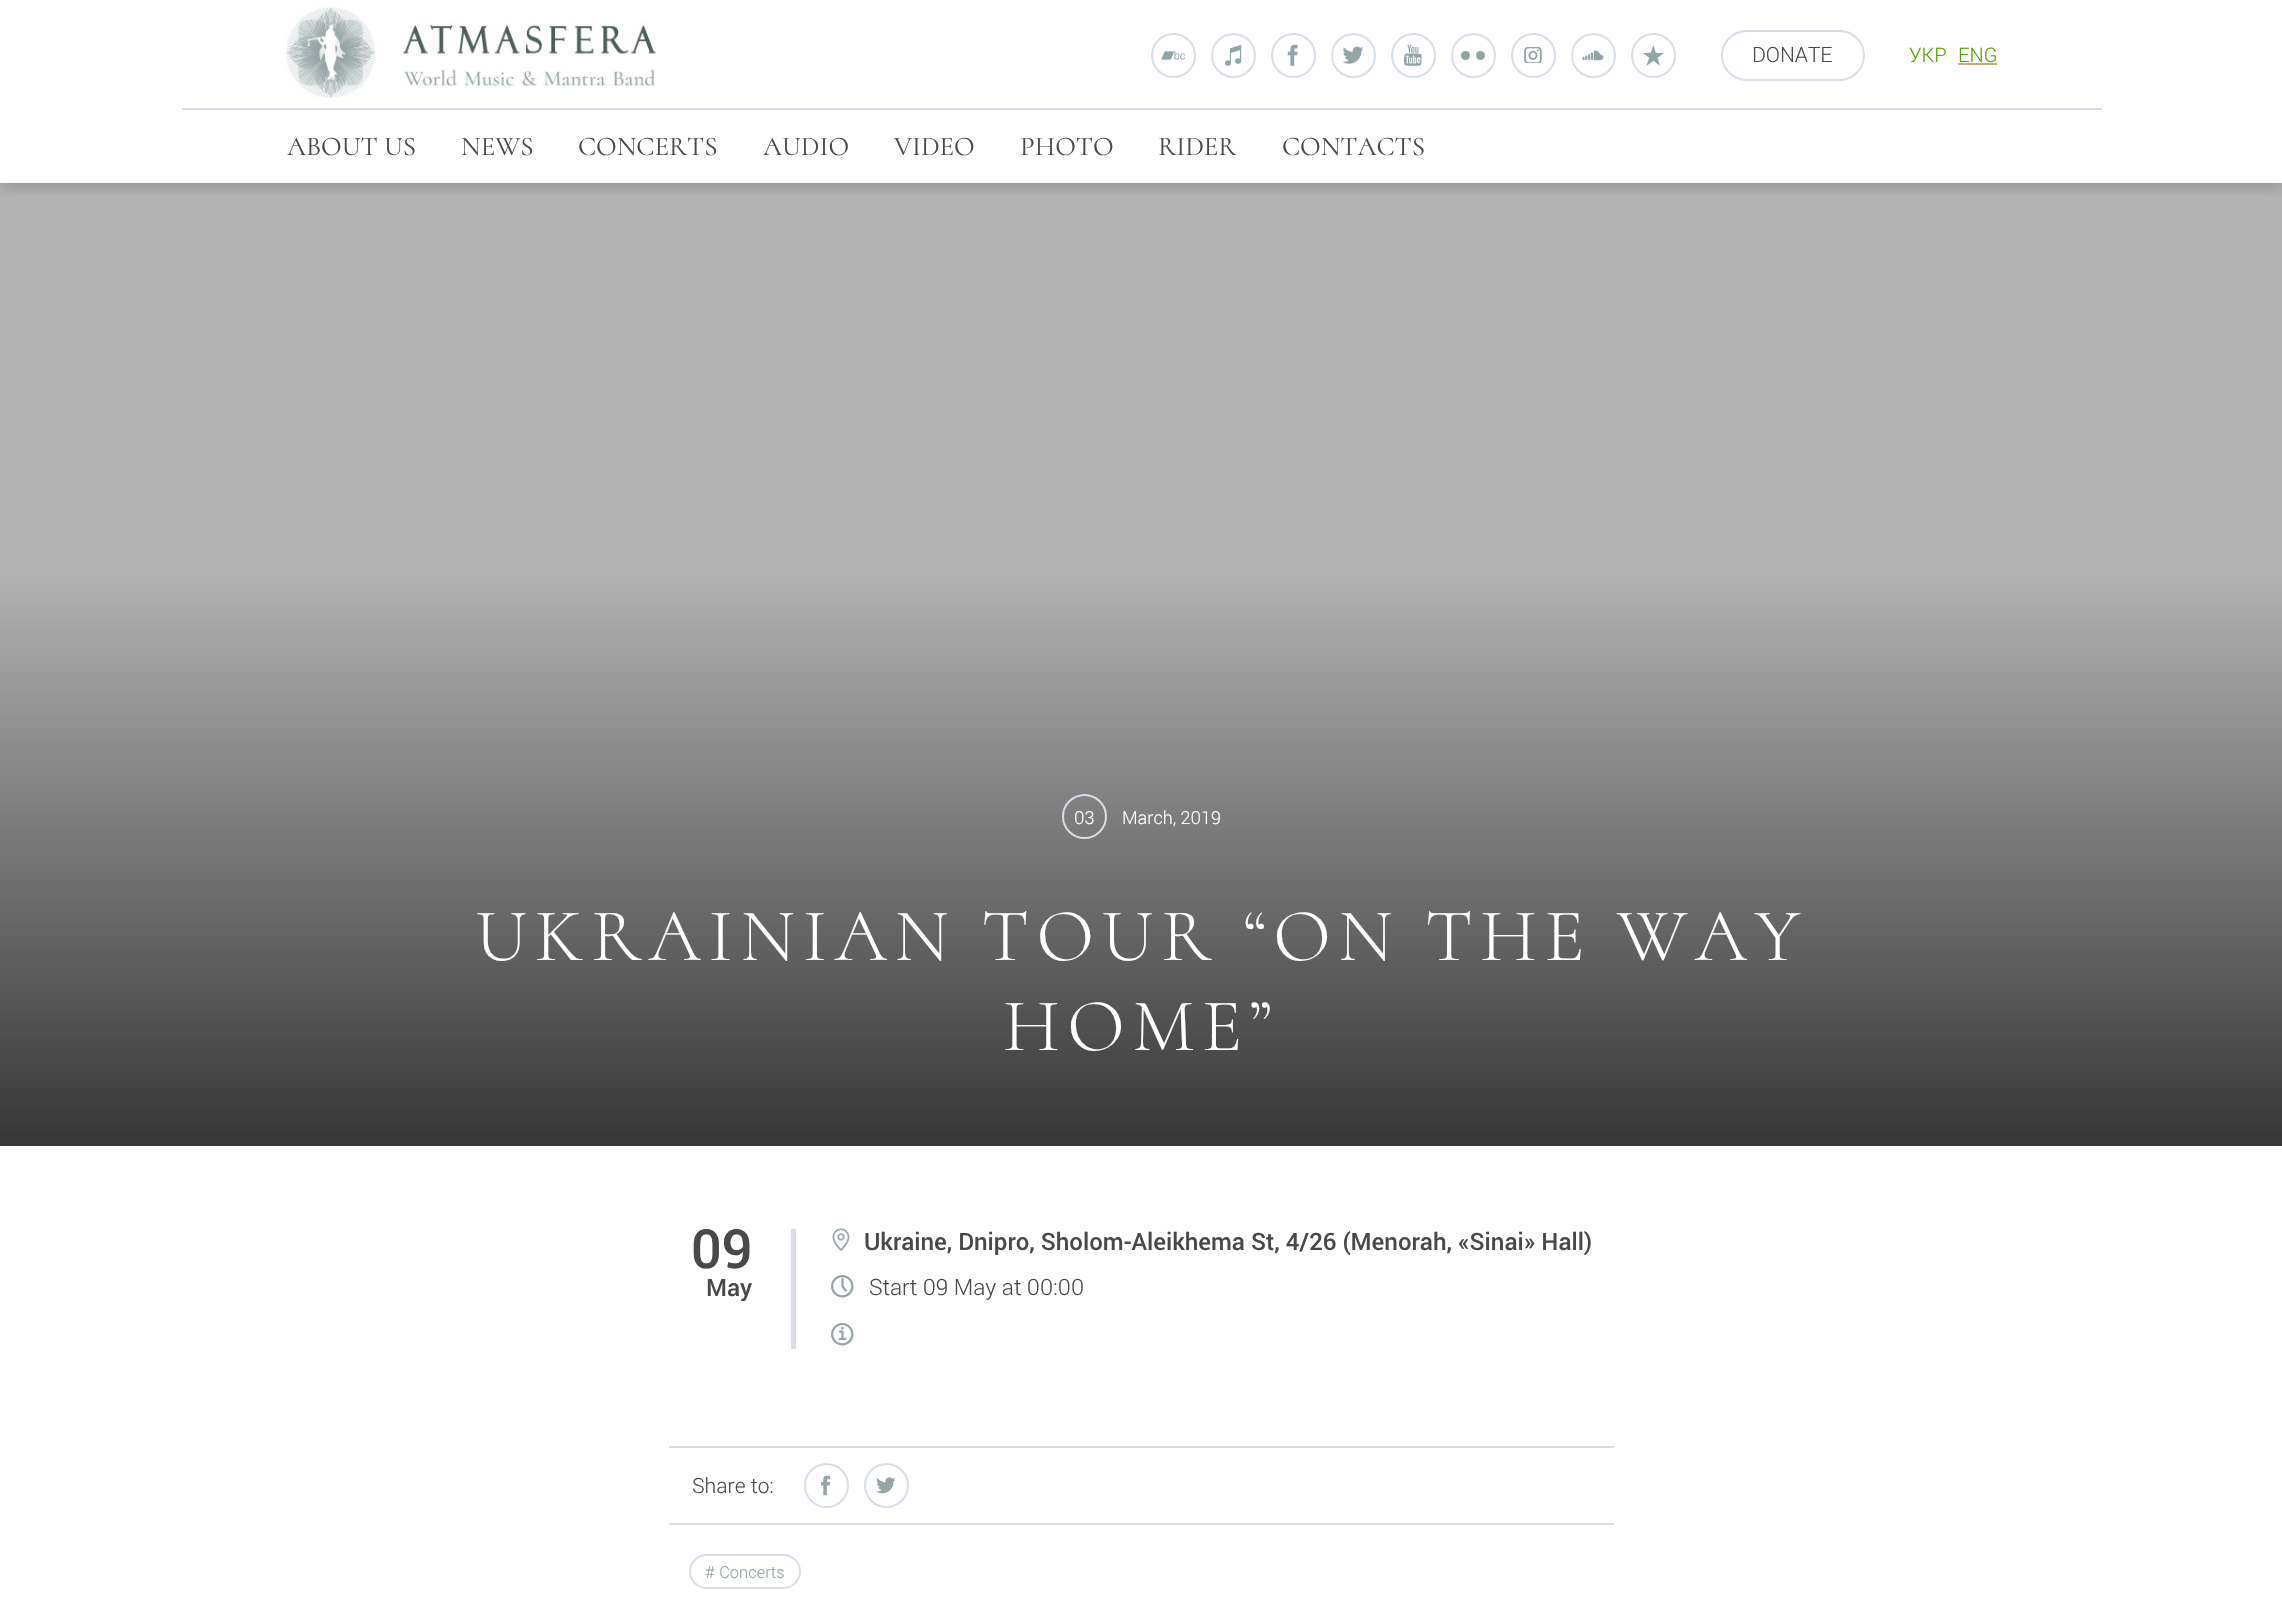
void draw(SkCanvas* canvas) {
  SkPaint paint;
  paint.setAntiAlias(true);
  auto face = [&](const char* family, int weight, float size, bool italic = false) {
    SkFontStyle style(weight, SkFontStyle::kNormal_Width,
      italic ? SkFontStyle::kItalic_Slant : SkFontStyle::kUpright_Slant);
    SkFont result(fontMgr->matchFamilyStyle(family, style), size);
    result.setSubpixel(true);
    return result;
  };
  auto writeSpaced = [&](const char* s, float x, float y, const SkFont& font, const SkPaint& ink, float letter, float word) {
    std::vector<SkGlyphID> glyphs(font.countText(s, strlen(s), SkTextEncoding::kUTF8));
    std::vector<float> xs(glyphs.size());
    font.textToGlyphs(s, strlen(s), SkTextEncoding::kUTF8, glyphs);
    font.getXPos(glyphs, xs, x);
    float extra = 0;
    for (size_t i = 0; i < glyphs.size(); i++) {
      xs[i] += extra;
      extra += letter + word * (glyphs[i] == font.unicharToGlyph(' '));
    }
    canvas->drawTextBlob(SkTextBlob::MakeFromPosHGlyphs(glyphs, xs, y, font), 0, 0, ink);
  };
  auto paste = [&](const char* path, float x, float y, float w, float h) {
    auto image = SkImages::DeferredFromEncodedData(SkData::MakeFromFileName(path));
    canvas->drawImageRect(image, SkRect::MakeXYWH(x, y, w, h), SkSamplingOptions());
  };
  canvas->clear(0xffffffff);
  paint.setColor(0xffb3b3b3);
  canvas->drawRect(SkRect::MakeXYWH(0, 183, 2282, 386), paint);
  canvas->save();
  canvas->clipRect(SkRect::MakeXYWH(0, 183, 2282, 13));
  paint.setColor(0x33000000);
  paint.setMaskFilter(SkMaskFilter::MakeBlur(kNormal_SkBlurStyle, 7.5f));
  canvas->drawRect(SkRect::MakeXYWH(0, 3, 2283, 183), paint);
  paint.setMaskFilter(nullptr);
  canvas->restore();
  paste("img/1.png", 286, 7, 370, 91);
  paste("img/2.png", 1161, 51, 24, 9);
  paint.setStroke(true);
  paint.setStrokeWidth(2);
  paint.setColor(0xffd8dde7);
  canvas->drawCircle(1173.5f, 55.5f, 21.5f, paint);
  paste("img/3.png", 1224, 45, 18, 21);
  canvas->drawCircle(1233.5f, 55.5f, 21.5f, paint);
  paste("img/4.png", 1287, 44, 11, 22);
  canvas->drawCircle(1293.5f, 55.5f, 21.5f, paint);
  paste("img/5.png", 1342, 46, 22, 18);
  canvas->drawCircle(1353.5f, 55.5f, 21.5f, paint);
  paste("img/6.png", 1404, 44, 18, 22);
  canvas->drawCircle(1413.5f, 55.5f, 21.5f, paint);
  canvas->drawCircle(1473.5f, 55.5f, 21.5f, paint);
  paint.setStroke(false);
  paint.setColor(0xff95a5a6);
  canvas->drawCircle(1465.5f, 55.5f, 4.5f, paint);
  canvas->drawCircle(1480.5f, 55.5f, 4.5f, paint);
  paint.setStroke(true);
  paint.setColor(0xffd8dde7);
  canvas->drawCircle(1533.5f, 55.5f, 21.5f, paint);
  paste("img/7.png", 1524, 47, 18, 16);
  paste("img/8.png", 1582, 50, 22, 11);
  canvas->drawCircle(1593.5f, 55.5f, 21.5f, paint);
  paste("img/9.png", 1642, 45, 22, 21);
  canvas->drawCircle(1653.5f, 55.5f, 21.5f, paint);
  canvas->drawRoundRect(SkRect::MakeXYWH(1722, 31, 142, 49), 24.5f, 24.5f, paint);
  paint.setStroke(false);
  paint.setColor(0xffc7ac7f);
  canvas->drawRect(SkRect::MakeXYWH(1958, 63, 39, 2), paint);
  paint.setColor(0xffd8dde7);
  canvas->drawRect(SkRect::MakeXYWH(182, 108, 1920, 2), paint);
  {
    const SkColor colors[] = {0xffb3b3b3, 0xff363636};
    const float stops[] = {0, 1};
    const SkPoint ends[] = {{1142, 568}, {1142, 1146}};
    paint.setShader(SkGradientShader::MakeLinear(ends, colors, stops, 2, SkTileMode::kClamp));
    paint.setAlpha(255);
  }
  canvas->drawRect(SkRect::MakeXYWH(0, 569, 2282, 577), paint);
  paint.setStroke(true);
  paint.setShader(nullptr);
  paint.setColor(0xffd8dde7);
  canvas->drawCircle(1084.5f, 816.5f, 21.5f, paint);
  paint.setStroke(false);
  canvas->drawRect(SkRect::MakeXYWH(791, 1229, 5, 120), paint);
  paste("img/10.png", 832, 1228, 18, 23);
  paste("img/11.png", 831, 1275, 23, 23);
  paste("img/12.png", 831, 1323, 23, 23);
  canvas->drawRect(SkRect::MakeXYWH(669, 1446, 945, 2), paint);
  canvas->drawRect(SkRect::MakeXYWH(669, 1523, 945, 2), paint);
  paste("img/13.png", 820, 1475, 11, 21);
  paint.setStroke(true);
  canvas->drawCircle(826.5f, 1485.5f, 21.5f, paint);
  paste("img/14.png", 876, 1477, 20, 17);
  canvas->drawCircle(886.5f, 1485.5f, 21.5f, paint);
  canvas->drawRoundRect(SkRect::MakeXYWH(690, 1555, 110, 33), 16.5f, 16.5f, paint);
  auto f0 = face("Roboto", 300, 21);
  paint.setStroke(false);
  paint.setColor(0xff494949);
  canvas->drawString("DONATE", 1752, 62, f0, paint);
  auto f1 = face("Roboto", 300, 20);
  paint.setColor(0xff57a008);
  canvas->drawString("УКР", 1909, 62, f1, paint);
  canvas->drawString("ENG", 1958, 62, f1, paint);
  auto f2 = face("Cormorant Unicase", 400, 27);
  paint.setColor(0xff494949);
  {
    const struct { const char* s; float x, y; } items[] = {
      {"ABOUT US", 287, 155},
      {"NEWS", 461, 155},
      {"CONCERTS", 578, 155},
      {"AUDIO", 763, 155},
      {"VIDEO", 894, 155},
      {"PHOTO", 1020, 155},
      {"RIDER", 1158, 155},
      {"CONTACTS", 1282, 155},
    };
    for (auto [s, x, y] : items) {
      canvas->drawString(s, x, y, f2, paint);
    }
  }
  auto f3 = face("Roboto", 300, 18);
  paint.setColor(0xffffffff);
  canvas->drawString("03", 1074, 824, f3, paint);
  canvas->drawString("March, 2019", 1122, 824, f3, paint);
  auto f4 = face("Cormorant Unicase", 300, 75);
  writeSpaced("UKRAINIAN TOUR “ON THE WAY", 475, 960, f4, paint, 7.5f, 0);
  writeSpaced("HOME”", 1003, 1050, f4, paint, 7.5f, 0);
  auto f5 = face("Roboto", 500, 54);
  paint.setColor(0xff494949);
  canvas->drawString("09", 691, 1268, f5, paint);
  auto f6 = face("Roboto", 500, 24);
  canvas->drawString("May", 706, 1296, f6, paint);
  canvas->drawString("Ukraine, Dnipro, Sholom-Aleikhema St, 4/26 (Menorah, «Sinai» Hall)", 864, 1250, f6, paint);
  auto f7 = face("Roboto", 300, 22.5f);
  canvas->drawString("Start 09 May at 00:00", 869, 1295, f7, paint);
  canvas->drawString("Share to:", 692, 1493, f0, paint);
  auto f8 = face("Roboto", 300, 16.5f);
  paint.setColor(0xff95a5a6);
  canvas->drawString("# Concerts", 705, 1578, f8, paint);
}
